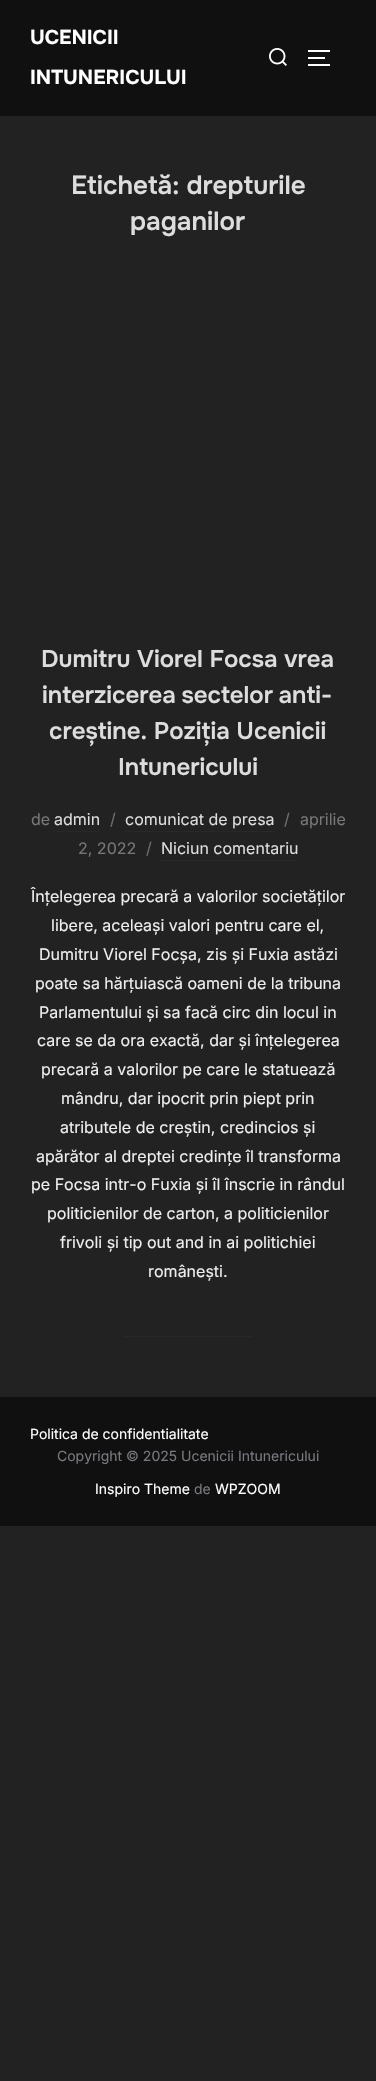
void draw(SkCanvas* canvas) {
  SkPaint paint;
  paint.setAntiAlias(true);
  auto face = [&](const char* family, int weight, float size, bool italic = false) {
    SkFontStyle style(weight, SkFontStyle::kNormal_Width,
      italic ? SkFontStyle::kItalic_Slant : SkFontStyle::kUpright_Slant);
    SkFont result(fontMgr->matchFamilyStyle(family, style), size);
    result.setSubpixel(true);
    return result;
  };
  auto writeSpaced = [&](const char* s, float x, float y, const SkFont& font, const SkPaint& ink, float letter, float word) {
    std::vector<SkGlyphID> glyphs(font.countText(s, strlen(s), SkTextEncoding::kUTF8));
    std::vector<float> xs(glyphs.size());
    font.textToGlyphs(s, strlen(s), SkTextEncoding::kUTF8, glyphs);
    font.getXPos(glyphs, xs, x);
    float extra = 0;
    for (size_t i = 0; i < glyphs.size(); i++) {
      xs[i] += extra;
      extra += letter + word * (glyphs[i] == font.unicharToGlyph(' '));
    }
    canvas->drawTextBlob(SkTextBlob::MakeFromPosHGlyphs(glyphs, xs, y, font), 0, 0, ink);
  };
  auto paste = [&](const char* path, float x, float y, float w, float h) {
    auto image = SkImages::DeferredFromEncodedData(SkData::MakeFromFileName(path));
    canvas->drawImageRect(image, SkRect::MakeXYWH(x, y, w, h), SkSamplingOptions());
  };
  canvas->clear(0xff222222);
  paint.setColor(0xff101010);
  canvas->drawRect(SkRect::MakeXYWH(0, 0, 376, 116), paint);
  paste("img/1.png", 269, 48, 18, 18);
  {
    const struct { float x, y, w, h; SkColor color; } items[] = {
      {308, 50, 22, 2, 0xffffffff},
      {308, 57, 17, 2, 0xffffffff},
      {308, 64, 22, 2, 0xffffffff},
      {54, 831, 46, 1, 0xff282828},
      {125, 831, 150, 1, 0xff282828},
      {161, 860, 137, 1, 0xff282828},
      {123, 1336, 130, 1, 0xff282828},
      {0, 1397, 376, 129, 0xff101010},
    };
    for (auto [x, y, w, h, color] : items) {
      paint.setColor(color);
      canvas->drawRect(SkRect::MakeXYWH(x, y, w, h), paint);
    }
  }
  auto f0 = face("Onest", 700, 20);
  paint.setColor(0xffffffff);
  canvas->drawString("UCENICII", 30, 44, f0, paint);
  canvas->drawString("INTUNERICULUI", 30, 84, f0, paint);
  auto f1 = face("Onest", 600, 26);
  paint.setColor(0xffdddddd);
  canvas->drawString("Etichetă: drepturile", 71, 194, f1, paint);
  canvas->drawString("paganilor", 130, 230, f1, paint);
  auto f2 = face("Onest", 600, 24);
  canvas->drawString("Dumitru Viorel Focsa vrea", 41, 667, f2, paint);
  writeSpaced("interzicerea sectelor anti-", 42, 703, f2, paint, 0, -1);
  canvas->drawString("creștine. Poziția Ucenicii", 49, 739, f2, paint);
  canvas->drawString("Intunericului", 118, 775, f2, paint);
  auto f3 = face("Inter", 400, 16);
  paint.setColor(0xff777777);
  canvas->drawString("de", 31, 825, f3, paint);
  paint.setColor(0xffdddddd);
  canvas->drawString("admin", 54, 825, f3, paint);
  paint.setColor(0xff6c6e6f);
  canvas->drawString("/", 110, 825, f3, paint);
  paint.setColor(0xffdddddd);
  canvas->drawString("comunicat de presa", 125, 825, f3, paint);
  paint.setColor(0xff6c6e6f);
  canvas->drawString("/", 284, 825, f3, paint);
  paint.setColor(0xff777777);
  canvas->drawString("aprilie", 300, 825, f3, paint);
  canvas->drawString("2, 2022", 78, 854, f3, paint);
  paint.setColor(0xff6c6e6f);
  canvas->drawString("/", 146, 854, f3, paint);
  paint.setColor(0xffdddddd);
  canvas->drawString("Niciun comentariu", 161, 854, f3, paint);
  paint.setColor(0xffeeeeee);
  {
    const struct { const char* s; float x, y; } items[] = {
      {"Înțelegerea precară a valorilor societăților", 31, 902},
      {"libere, aceleași valori pentru care el,", 51, 931},
      {"Dumitru Viorel Focșa, zis și Fuxia astăzi", 39, 960},
      {"poate sa hărțuiască oameni de la tribuna", 35, 989},
      {"Parlamentului și sa facă circ din locul in", 39, 1018},
      {"care se da ora exactă, dar și înțelegerea", 37, 1046},
      {"precară a valorilor pe care le statuează", 41, 1075},
      {"mândru, dar ipocrit prin piept prin", 61, 1104},
      {"atributele de creștin, credincios și", 60, 1133},
      {"apărător al dreptei credințe îl transforma", 36, 1162},
      {"pe Focsa intr-o Fuxia și îl înscrie in rândul", 31, 1190},
      {"politicienilor de carton, a politicienilor", 47, 1219},
      {"frivoli și tip out and in ai politichiei", 60, 1248},
      {"românești.", 148, 1277},
    };
    for (auto [s, x, y] : items) {
      canvas->drawString(s, x, y, f3, paint);
    }
  }
  auto f4 = face("Inter", 400, 14);
  paint.setColor(0xffffffff);
  canvas->drawString("Politica de confidentialitate", 30, 1439, f4, paint);
  paint.setColor(0xff78787f);
  canvas->drawString("Copyright © 2025 Ucenicii Intunericului", 57, 1461, f4, paint);
  paint.setColor(0xffffffff);
  canvas->drawString("Inspiro Theme", 95, 1494, f4, paint);
  paint.setColor(0xff78787f);
  canvas->drawString("de", 194, 1494, f4, paint);
  paint.setColor(0xffffffff);
  canvas->drawString("WPZOOM", 215, 1494, f4, paint);
}
